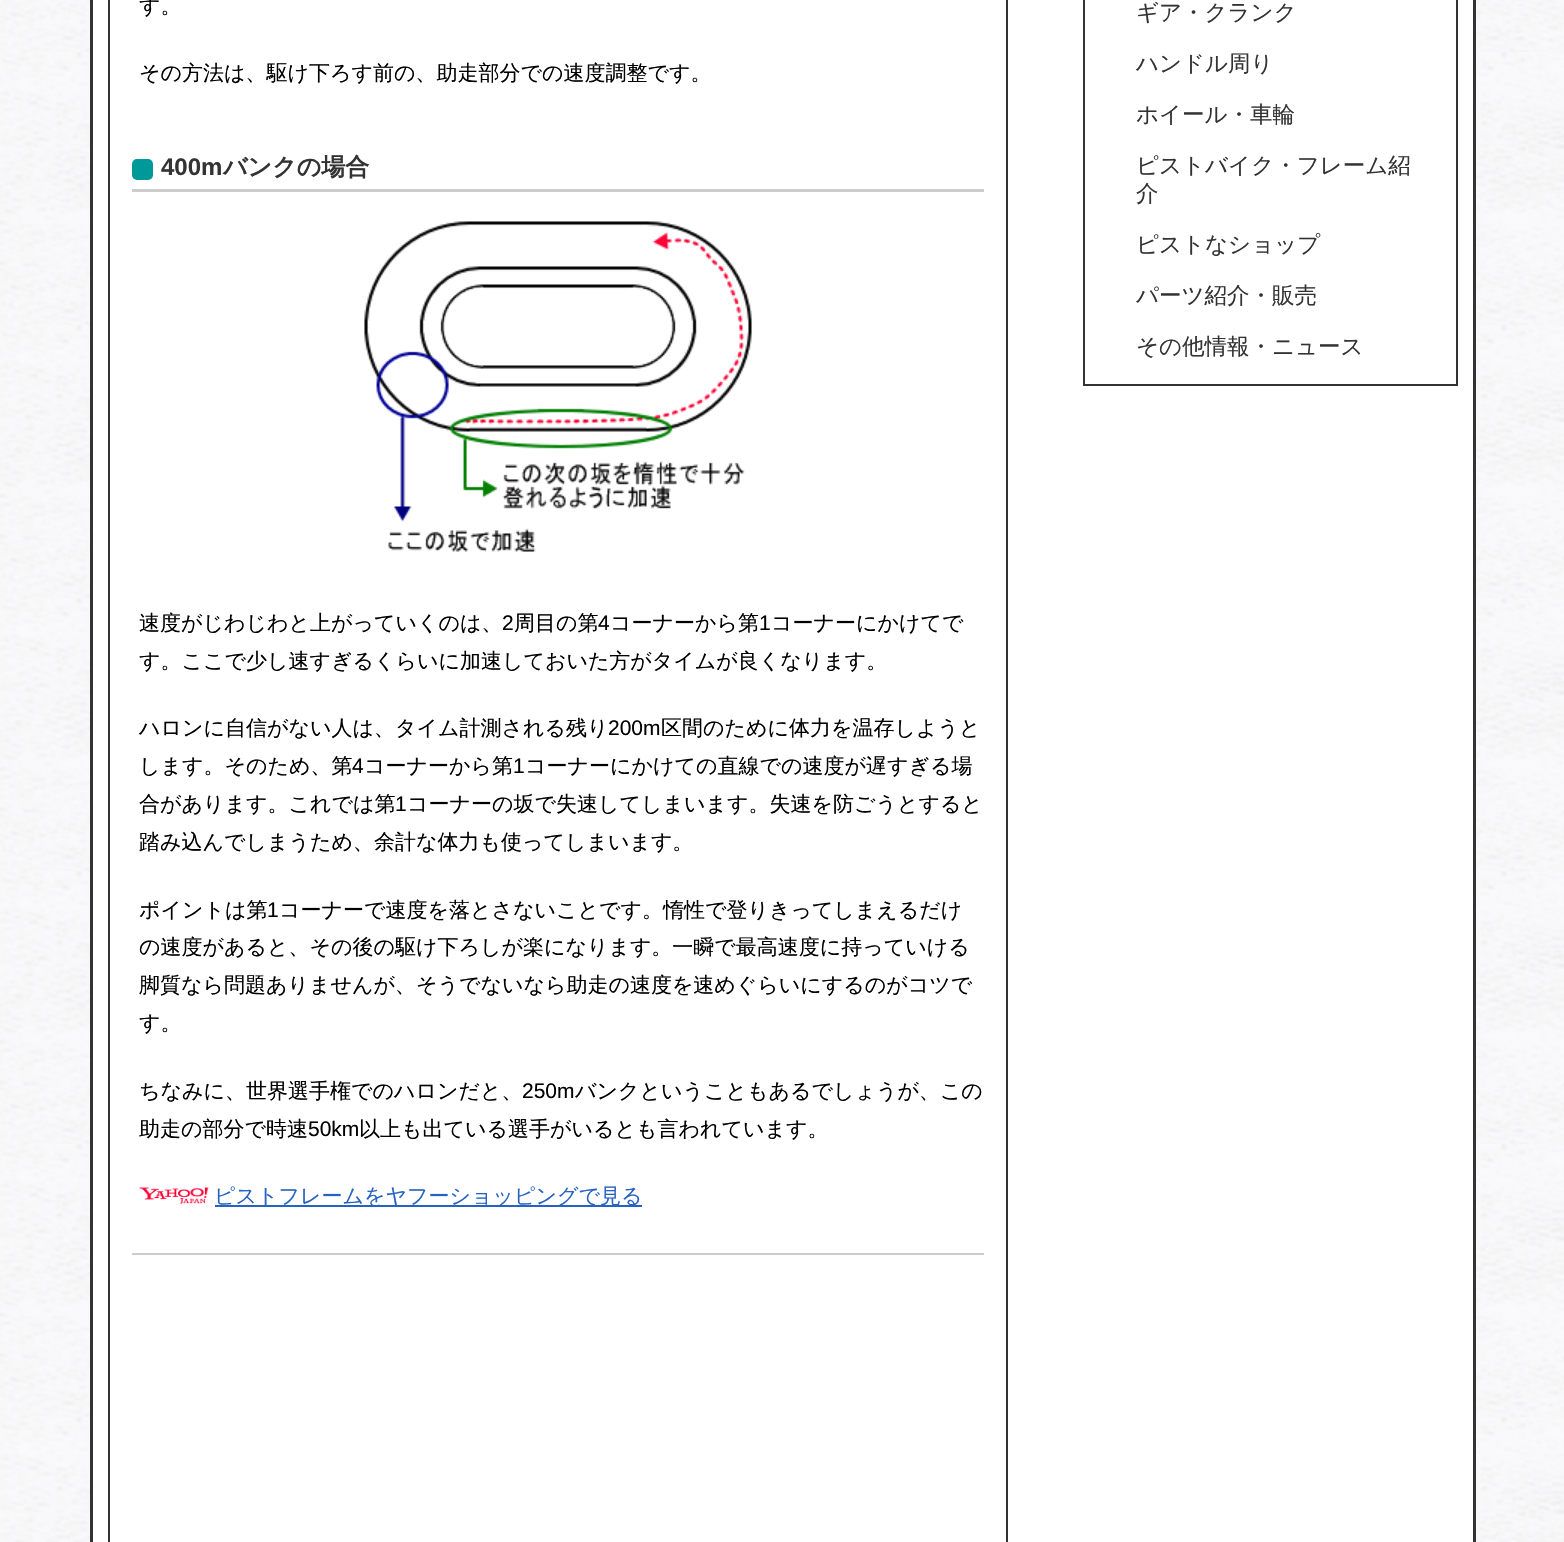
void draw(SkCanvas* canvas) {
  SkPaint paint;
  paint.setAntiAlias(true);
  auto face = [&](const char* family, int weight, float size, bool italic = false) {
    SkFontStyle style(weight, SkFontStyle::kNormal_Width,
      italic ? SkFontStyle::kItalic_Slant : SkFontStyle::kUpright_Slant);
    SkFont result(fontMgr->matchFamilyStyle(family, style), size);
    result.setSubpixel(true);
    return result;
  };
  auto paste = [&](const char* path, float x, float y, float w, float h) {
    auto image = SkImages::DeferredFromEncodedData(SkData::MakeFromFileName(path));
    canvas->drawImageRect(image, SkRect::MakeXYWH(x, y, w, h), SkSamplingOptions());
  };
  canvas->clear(0xffffffff);
  paste("img/1.png", 0, 0, 1564, 1542);
  paint.setColor(0xffffffff);
  canvas->drawRect(SkRect::MakeXYWH(91.5f, -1.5f, 1383, 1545), paint);
  paint.setStroke(true);
  paint.setStrokeWidth(3);
  paint.setColor(0xff333333);
  canvas->drawRect(SkRect::MakeXYWH(91.5f, -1.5f, 1383, 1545), paint);
  paint.setStrokeWidth(2);
  canvas->drawRect(SkRect::MakeXYWH(109, -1, 898, 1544), paint);
  paint.setStroke(false);
  paint.setColor(0xffcccccc);
  canvas->drawRect(SkRect::MakeXYWH(132, 189, 852, 3), paint);
  paint.setColor(0xff009999);
  canvas->drawRoundRect(SkRect::MakeXYWH(132, 159, 21, 21), 5, 5, paint);
  paste("img/2.png", 364, 221, 388, 331);
  paste("img/3.png", 139, 1187, 70, 17);
  paint.setColor(0xff2662c3);
  canvas->drawRect(SkRect::MakeXYWH(215, 1205, 427, 2), paint);
  paint.setColor(0xffcccccc);
  canvas->drawRect(SkRect::MakeXYWH(132, 1253, 852, 2), paint);
  paint.setStroke(true);
  paint.setColor(0xff333333);
  canvas->drawRect(SkRect::MakeXYWH(1084, -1, 373, 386), paint);
  auto f0 = face("WenQuanYi Zen Hei", 500, 21);
  paint.setStroke(false);
  paint.setColor(0xff000000);
  canvas->drawString("す。", 139, 13, f0, paint);
  canvas->drawString("その方法は、駆け下ろす前の、助走部分での速度調整です。", 139, 80, f0, paint);
  auto f1 = face("Liberation Sans", 700, 24);
  paint.setColor(0xff333333);
  canvas->drawString("400m", 161, 175, f1, paint);
  auto f2 = face("WenQuanYi Zen Hei", 700, 24);
  canvas->drawString("バンクの場合", 223, 175, f2, paint);
  paint.setColor(0xff000000);
  canvas->drawString("速度がじわじわと上がっていくのは、", 139, 630, f0, paint);
  auto f3 = face("Liberation Sans", 400, 21);
  canvas->drawString("2", 502, 630, f3, paint);
  canvas->drawString("周目の第", 514, 630, f0, paint);
  canvas->drawString("4", 598, 630, f3, paint);
  canvas->drawString("コーナーから第", 610, 630, f0, paint);
  canvas->drawString("1", 759, 630, f3, paint);
  {
    const struct { const char* s; float x, y; } items[] = {
      {"コーナーにかけてで", 771, 630},
      {"す。ここで少し速すぎるくらいに加速しておいた方がタイムが良くなります。", 139, 668},
      {"ハロンに自信がない人は、タイム計測される残り", 139, 735},
    };
    for (auto [s, x, y] : items) {
      canvas->drawString(s, x, y, f0, paint);
    }
  }
  canvas->drawString("200m", 608, 735, f3, paint);
  canvas->drawString("区間のために体力を温存しようと", 661, 735, f0, paint);
  canvas->drawString("します。そのため、第", 139, 773, f0, paint);
  canvas->drawString("4", 352, 773, f3, paint);
  canvas->drawString("コーナーから第", 364, 773, f0, paint);
  canvas->drawString("1", 513, 773, f3, paint);
  canvas->drawString("コーナーにかけての直線での速度が遅すぎる場", 525, 773, f0, paint);
  canvas->drawString("合があります。これでは第", 139, 811, f0, paint);
  canvas->drawString("1", 395, 811, f3, paint);
  {
    const struct { const char* s; float x, y; } items[] = {
      {"コーナーの坂で失速してしまいます。失速を防ごうとすると", 407, 811},
      {"踏み込んでしまうため、余計な体力も使ってしまいます。", 139, 849},
      {"ポイントは第", 139, 917},
    };
    for (auto [s, x, y] : items) {
      canvas->drawString(s, x, y, f0, paint);
    }
  }
  canvas->drawString("1", 267, 917, f3, paint);
  {
    const struct { const char* s; float x, y; } items[] = {
      {"コーナーで速度を落とさないことです。惰性で登りきってしまえるだけ", 279, 917},
      {"の速度があると、その後の駆け下ろしが楽になります。一瞬で最高速度に持っていける", 139, 954},
      {"脚質なら問題ありませんが、そうでないなら助走の速度を速めぐらいにするのがコツで", 139, 992},
      {"す。", 139, 1030},
      {"ちなみに、世界選手権でのハロンだと、", 139, 1098},
    };
    for (auto [s, x, y] : items) {
      canvas->drawString(s, x, y, f0, paint);
    }
  }
  canvas->drawString("250m", 522, 1098, f3, paint);
  canvas->drawString("バンクということもあるでしょうが、この", 575, 1098, f0, paint);
  canvas->drawString("助走の部分で時速", 139, 1136, f0, paint);
  canvas->drawString("50km", 308, 1136, f3, paint);
  canvas->drawString("以上も出ている選手がいるとも言われています。", 359, 1136, f0, paint);
  paint.setColor(0xff2662c3);
  canvas->drawString("ピストフレームをヤフーショッピングで見る", 214, 1203, f0, paint);
  auto f4 = face("WenQuanYi Zen Hei", 500, 22.5f);
  paint.setColor(0xff333333);
  {
    const struct { const char* s; float x, y; } items[] = {
      {"ギア・クランク", 1136, 20},
      {"ハンドル周り", 1136, 71},
      {"ホイール・車輪", 1136, 122},
      {"ピストバイク・フレーム紹", 1136, 173},
      {"介", 1136, 201},
      {"ピストなショップ", 1136, 252},
      {"パーツ紹介・販売", 1136, 303},
      {"その他情報・ニュース", 1136, 354},
    };
    for (auto [s, x, y] : items) {
      canvas->drawString(s, x, y, f4, paint);
    }
  }
}
